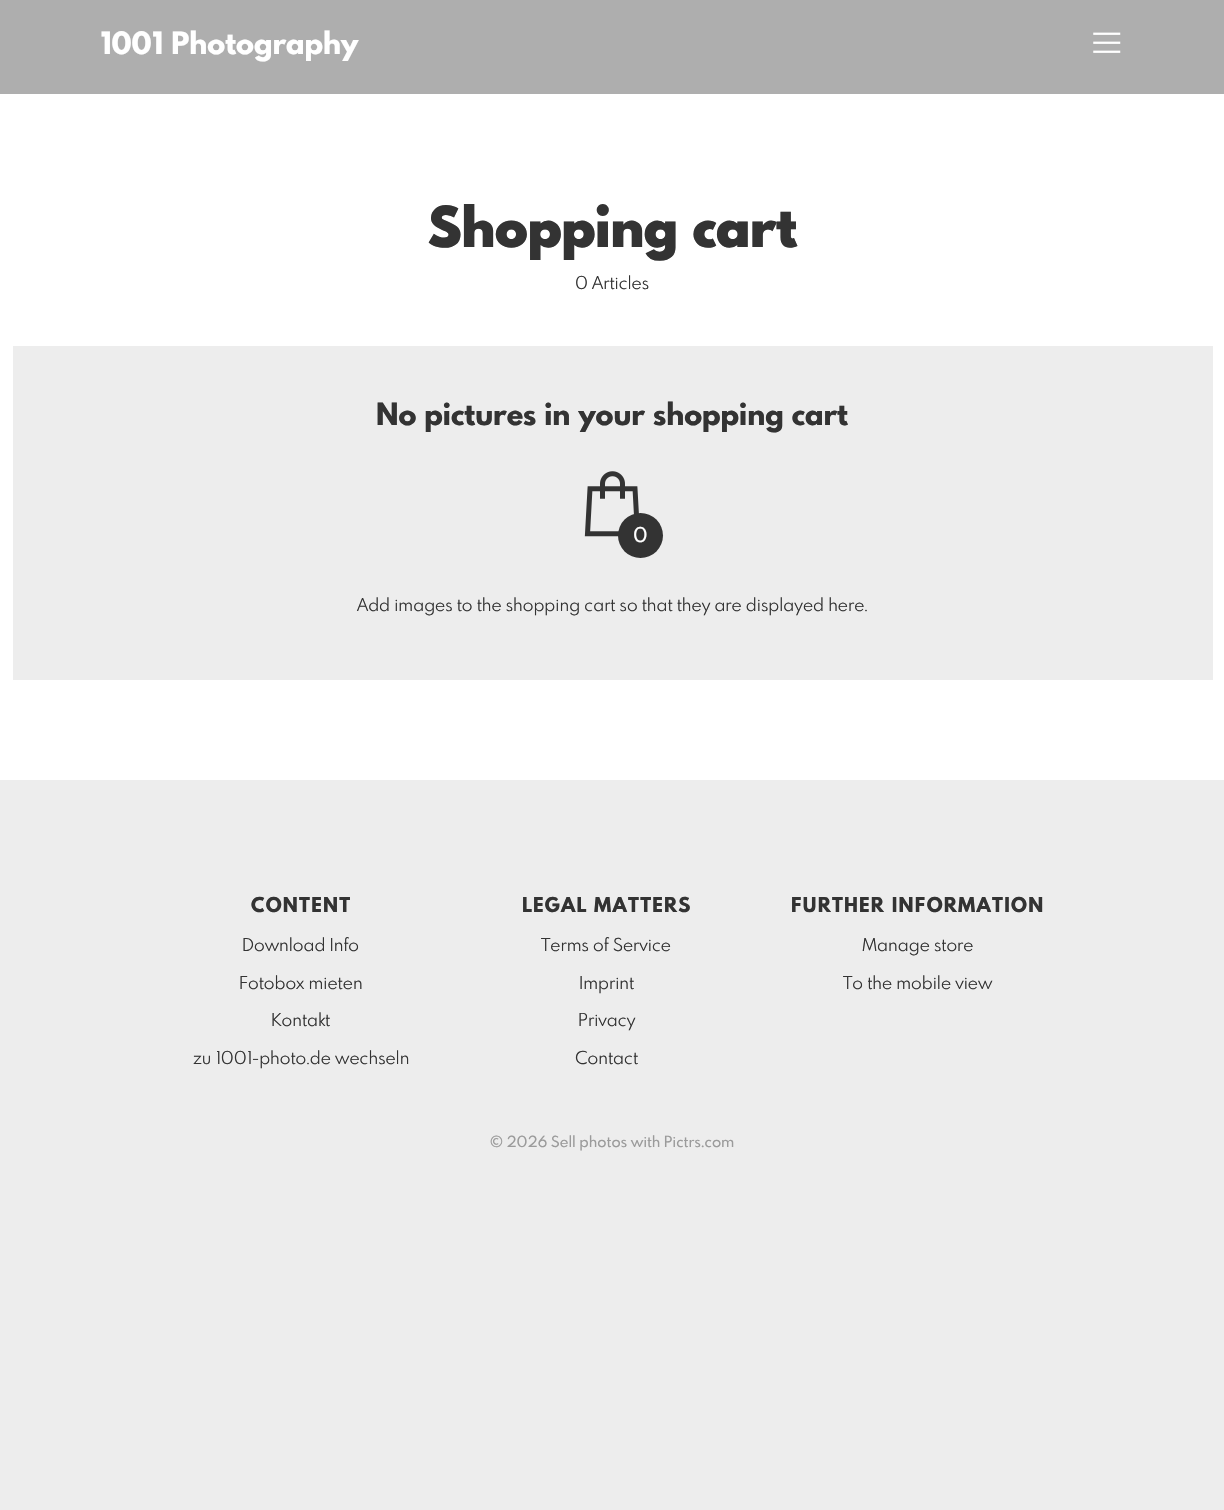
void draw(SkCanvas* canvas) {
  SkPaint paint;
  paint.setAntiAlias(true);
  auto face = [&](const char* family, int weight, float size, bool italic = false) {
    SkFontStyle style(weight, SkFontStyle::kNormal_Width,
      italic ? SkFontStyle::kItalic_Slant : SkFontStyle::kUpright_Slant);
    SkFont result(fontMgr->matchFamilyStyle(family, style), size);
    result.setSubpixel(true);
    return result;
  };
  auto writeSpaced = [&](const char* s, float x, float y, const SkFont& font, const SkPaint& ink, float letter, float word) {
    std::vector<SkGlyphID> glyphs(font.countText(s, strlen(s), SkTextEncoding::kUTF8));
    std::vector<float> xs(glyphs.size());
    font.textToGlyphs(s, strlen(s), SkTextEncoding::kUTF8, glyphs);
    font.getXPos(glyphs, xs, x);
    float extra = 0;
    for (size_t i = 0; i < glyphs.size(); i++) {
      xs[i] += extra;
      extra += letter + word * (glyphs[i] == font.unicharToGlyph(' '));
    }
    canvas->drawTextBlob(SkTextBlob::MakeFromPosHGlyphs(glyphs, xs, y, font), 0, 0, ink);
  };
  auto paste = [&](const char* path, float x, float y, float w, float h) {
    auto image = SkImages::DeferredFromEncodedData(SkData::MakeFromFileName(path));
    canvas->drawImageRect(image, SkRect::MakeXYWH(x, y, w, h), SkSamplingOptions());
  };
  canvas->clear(0xffededed);
  paint.setColor(0xffaeaeae);
  canvas->drawRect(SkRect::MakeXYWH(0, 0, 1224, 94), paint);
  paste("img/1.png", 1093, 32, 28, 21);
  paint.setColor(0xffffffff);
  canvas->drawRect(SkRect::MakeXYWH(0, 94, 1224, 686), paint);
  paint.setColor(0xffededed);
  canvas->drawRect(SkRect::MakeXYWH(13, 346, 1200, 334), paint);
  paste("img/2.png", 584, 471, 55, 66);
  paint.setColor(0xff333333);
  canvas->drawCircle(640.5f, 535.5f, 22.5f, paint);
  auto f0 = face("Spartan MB", 800, 30);
  paint.setColor(0xffffffff);
  canvas->drawString("1001 Photography", 100, 54, f0, paint);
  auto f1 = face("Spartan MB", 900, 55);
  paint.setColor(0xff333333);
  canvas->drawString("Shopping cart", 428, 247, f1, paint);
  auto f2 = face("Spartan MB", 400, 17.5f);
  canvas->drawString("0 Articles", 575, 289, f2, paint);
  canvas->drawString("No pictures in your shopping cart", 376, 425, f0, paint);
  auto f3 = face("Spartan MB", 500, 20);
  paint.setColor(0xffffffff);
  canvas->drawString("0", 633, 542, f3, paint);
  paint.setColor(0xff333333);
  canvas->drawString("Add images to the shopping cart so that they are displayed here.", 357, 611, f2, paint);
  auto f4 = face("Spartan MB", 800, 20);
  writeSpaced("CONTENT", 251, 912, f4, paint, 1.25f, 0);
  {
    const struct { const char* s; float x, y; } items[] = {
      {"Download Info", 242, 951},
      {"Fotobox mieten", 239, 989},
      {"Kontakt", 271, 1026},
      {"zu 1001-photo.de wechseln", 193, 1064},
    };
    for (auto [s, x, y] : items) {
      canvas->drawString(s, x, y, f2, paint);
    }
  }
  writeSpaced("LEGAL MATTERS", 522, 912, f4, paint, 1.25f, 0);
  {
    const struct { const char* s; float x, y; } items[] = {
      {"Terms of Service", 541, 951},
      {"Imprint", 579, 989},
      {"Privacy", 578, 1026},
      {"Contact", 575, 1064},
    };
    for (auto [s, x, y] : items) {
      canvas->drawString(s, x, y, f2, paint);
    }
  }
  writeSpaced("FURTHER INFORMATION", 791, 912, f4, paint, 1.25f, 0);
  canvas->drawString("Manage store", 862, 951, f2, paint);
  canvas->drawString("To the mobile view", 843, 989, f2, paint);
  auto f5 = face("Spartan MB", 500, 15);
  paint.setColor(0xff9b9b9b);
  canvas->drawString("© 2026 Sell photos with Pictrs.com", 490, 1147, f5, paint);
}
